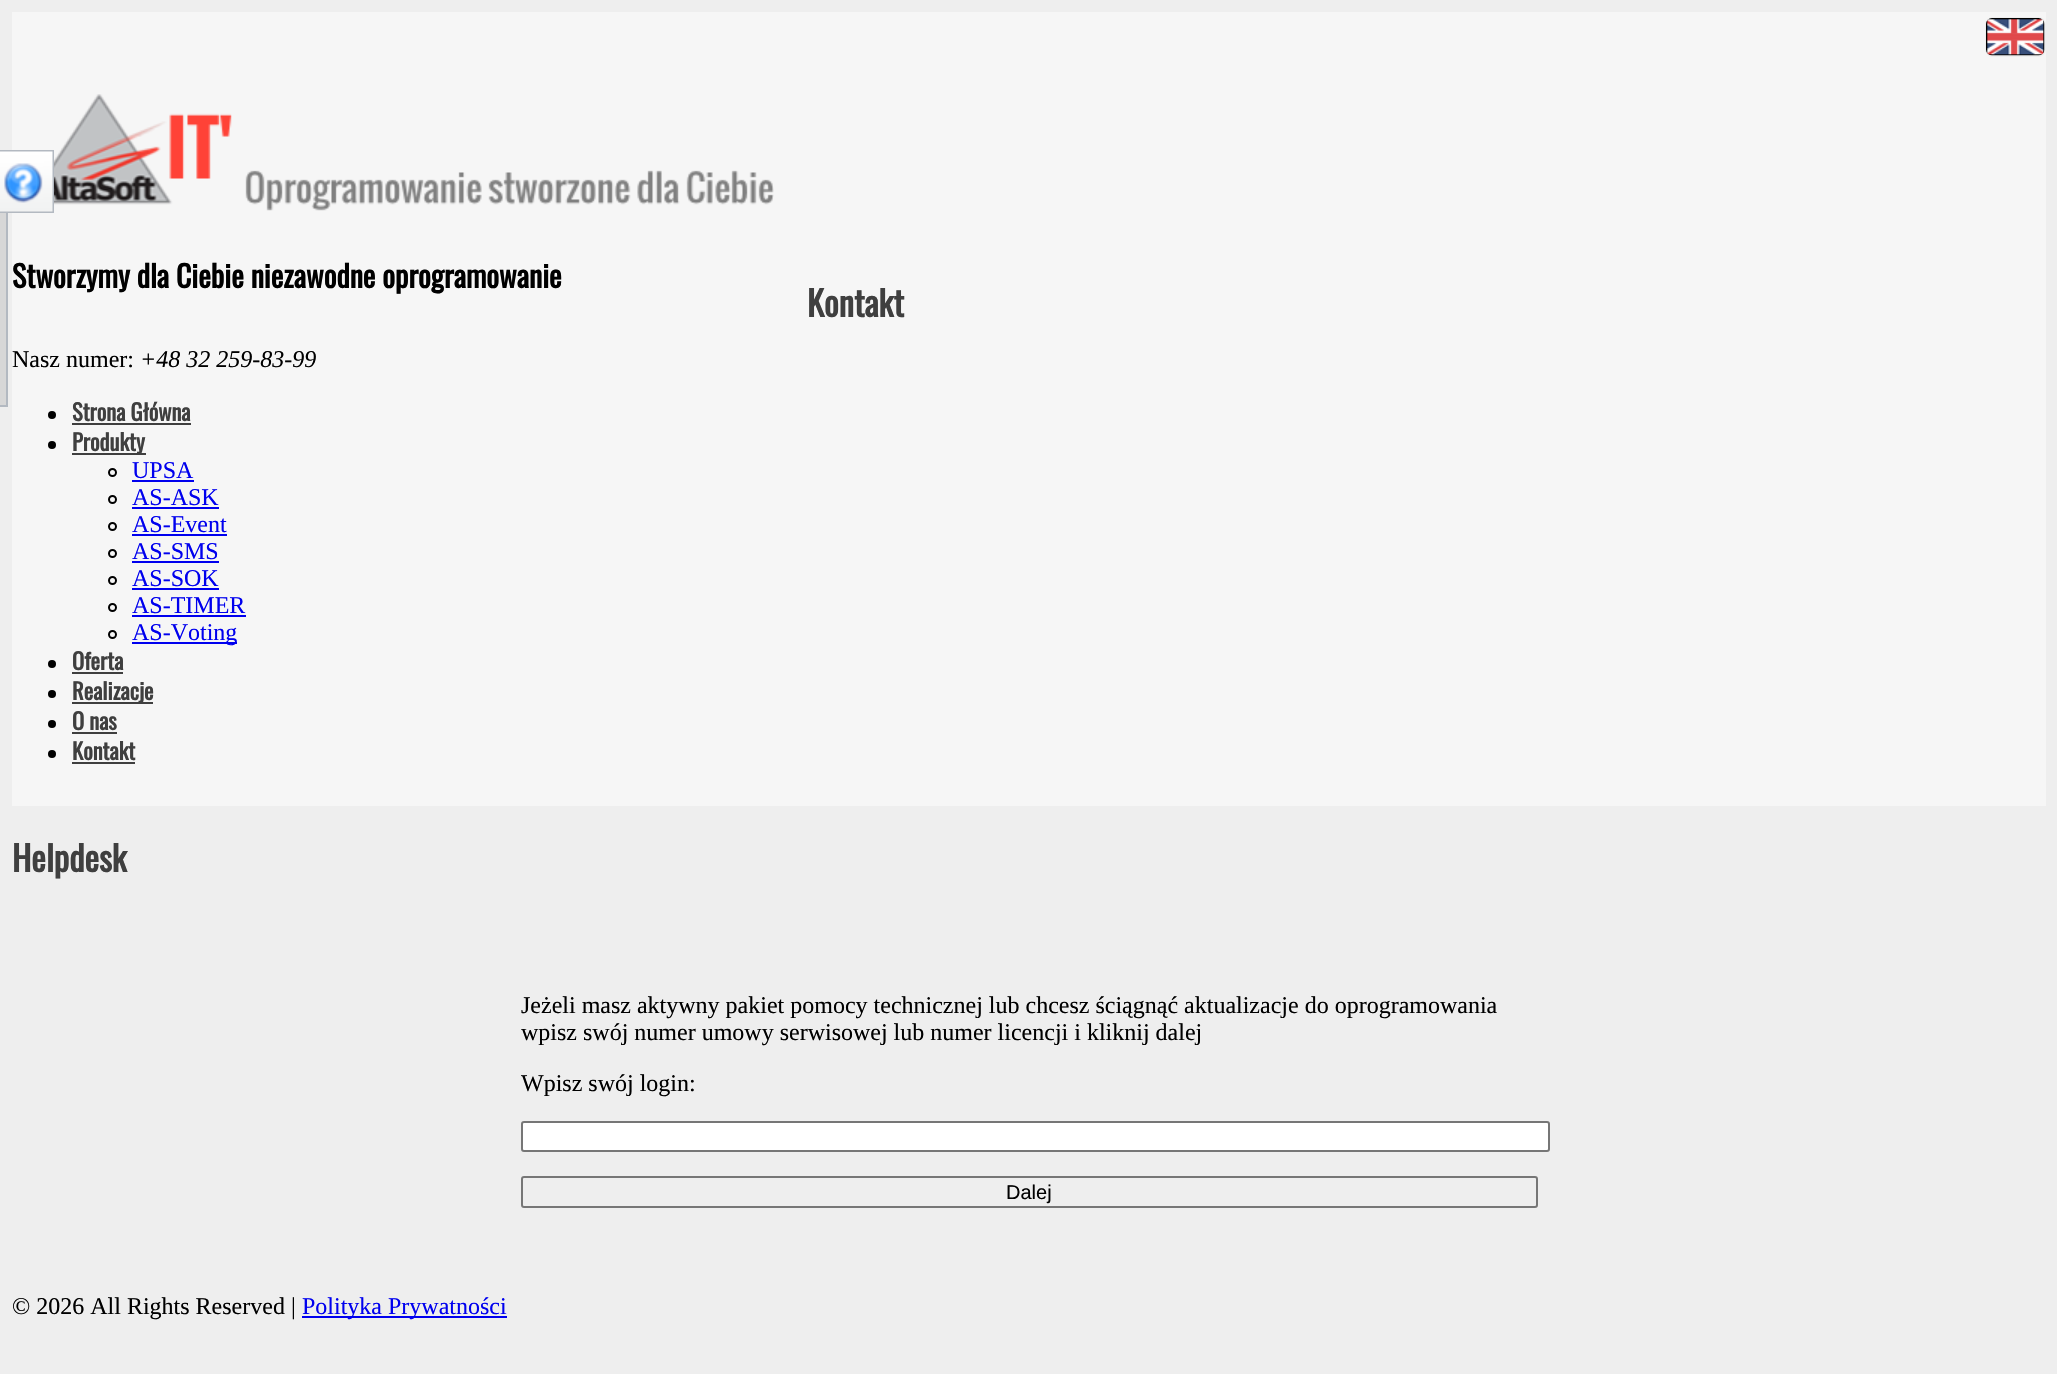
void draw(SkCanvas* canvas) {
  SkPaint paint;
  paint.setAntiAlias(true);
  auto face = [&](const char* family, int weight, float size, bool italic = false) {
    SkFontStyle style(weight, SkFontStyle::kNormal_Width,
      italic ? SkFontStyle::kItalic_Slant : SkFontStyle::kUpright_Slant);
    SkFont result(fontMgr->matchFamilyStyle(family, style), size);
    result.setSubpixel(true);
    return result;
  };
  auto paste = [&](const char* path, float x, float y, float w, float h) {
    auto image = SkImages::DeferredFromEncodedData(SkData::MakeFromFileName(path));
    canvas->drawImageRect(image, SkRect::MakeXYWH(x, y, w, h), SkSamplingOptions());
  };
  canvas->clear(0xffeeeeee);
  paint.setColor(0xffd7d7d7);
  canvas->drawRect(SkRect::MakeXYWH(0, 213, 6, 194), paint);
  paint.setStroke(true);
  paint.setStrokeWidth(2);
  paint.setColor(0xffb3b9c1);
  canvas->drawRect(SkRect::MakeXYWH(-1, 190, 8, 216), paint);
  paint.setStroke(false);
  paint.setColor(0xfff6f6f6);
  canvas->drawRect(SkRect::MakeXYWH(12, 12, 2034, 794), paint);
  paste("img/1.png", 0, 150, 54, 63);
  paint.setStroke(true);
  paint.setColor(0xffeeeeee);
  canvas->drawRoundRect(SkRect::MakeXYWH(1986, 18, 59, 38), 7, 7, paint);
  paste("img/2.png", 1986, 18, 59, 38);
  paste("img/3.png", 54, 94, 178, 111);
  paste("img/4.png", 245, 170, 529, 41);
  paint.setStroke(false);
  paint.setColor(0xff000000);
  canvas->drawCircle(52, 415, 4, paint);
  paint.setColor(0xff3f3f3f);
  canvas->drawRect(SkRect::MakeXYWH(72, 423, 119, 2), paint);
  paint.setColor(0xff000000);
  canvas->drawCircle(52, 445, 4, paint);
  paint.setColor(0xff3f3f3f);
  canvas->drawRect(SkRect::MakeXYWH(72, 453, 74, 2), paint);
  paint.setStroke(true);
  paint.setColor(0xff000000);
  canvas->drawCircle(112.5f, 472.5f, 3.5f, paint);
  paint.setStroke(false);
  paint.setColor(0xff0000ee);
  canvas->drawRect(SkRect::MakeXYWH(132, 480, 62, 2), paint);
  paint.setStroke(true);
  paint.setColor(0xff000000);
  canvas->drawCircle(112.5f, 499.5f, 3.5f, paint);
  paint.setStroke(false);
  paint.setColor(0xff0000ee);
  canvas->drawRect(SkRect::MakeXYWH(132, 507, 87, 2), paint);
  paint.setStroke(true);
  paint.setColor(0xff000000);
  canvas->drawCircle(112.5f, 526.5f, 3.5f, paint);
  paint.setStroke(false);
  paint.setColor(0xff0000ee);
  canvas->drawRect(SkRect::MakeXYWH(132, 534, 95, 2), paint);
  paint.setStroke(true);
  paint.setColor(0xff000000);
  canvas->drawCircle(112.5f, 553.5f, 3.5f, paint);
  paint.setStroke(false);
  paint.setColor(0xff0000ee);
  canvas->drawRect(SkRect::MakeXYWH(132, 561, 87, 2), paint);
  paint.setStroke(true);
  paint.setColor(0xff000000);
  canvas->drawCircle(112.5f, 580.5f, 3.5f, paint);
  paint.setStroke(false);
  paint.setColor(0xff0000ee);
  canvas->drawRect(SkRect::MakeXYWH(132, 588, 87, 2), paint);
  paint.setStroke(true);
  paint.setColor(0xff000000);
  canvas->drawCircle(112.5f, 607.5f, 3.5f, paint);
  paint.setStroke(false);
  paint.setColor(0xff0000ee);
  canvas->drawRect(SkRect::MakeXYWH(132, 615, 114, 2), paint);
  paint.setStroke(true);
  paint.setColor(0xff000000);
  canvas->drawCircle(112.5f, 634.5f, 3.5f, paint);
  paint.setStroke(false);
  paint.setColor(0xff0000ee);
  canvas->drawRect(SkRect::MakeXYWH(132, 642, 105, 2), paint);
  paint.setColor(0xff000000);
  canvas->drawCircle(52, 664, 4, paint);
  paint.setColor(0xff3f3f3f);
  canvas->drawRect(SkRect::MakeXYWH(72, 672, 51, 2), paint);
  paint.setColor(0xff000000);
  canvas->drawCircle(52, 694, 4, paint);
  paint.setColor(0xff3f3f3f);
  canvas->drawRect(SkRect::MakeXYWH(72, 702, 81, 2), paint);
  paint.setColor(0xff000000);
  canvas->drawCircle(52, 724, 4, paint);
  paint.setColor(0xff3f3f3f);
  canvas->drawRect(SkRect::MakeXYWH(72, 732, 45, 2), paint);
  paint.setColor(0xff000000);
  canvas->drawCircle(52, 754, 4, paint);
  paint.setColor(0xff3f3f3f);
  canvas->drawRect(SkRect::MakeXYWH(72, 762, 63, 2), paint);
  paint.setColor(0xffffffff);
  canvas->drawRoundRect(SkRect::MakeXYWH(522, 1122, 1027, 29), 2, 2, paint);
  paint.setStroke(true);
  paint.setColor(0xff767676);
  canvas->drawRoundRect(SkRect::MakeXYWH(522, 1122, 1027, 29), 2, 2, paint);
  canvas->drawRoundRect(SkRect::MakeXYWH(522, 1177, 1015, 30), 2, 2, paint);
  paint.setStroke(false);
  paint.setColor(0xff0000ee);
  canvas->drawRect(SkRect::MakeXYWH(302, 1316, 205, 2), paint);
  auto f0 = face("Oswald", 700, 30);
  paint.setColor(0xff000000);
  canvas->drawString("Stworzymy dla Ciebie niezawodne oprogramowanie", 12, 288, f0, paint);
  auto f1 = face("Oswald", 700, 34.5f);
  paint.setColor(0xff3f3f3f);
  canvas->drawString("Kontakt", 807, 317, f1, paint);
  auto f2 = face("Liberation Serif", 400, 24);
  paint.setColor(0xff000000);
  canvas->drawString("Nasz numer:", 12, 367, f2, paint);
  auto f3 = face("Liberation Serif", 400, 24, true);
  canvas->drawString("+48 32 259-83-99", 140, 367, f3, paint);
  auto f4 = face("Oswald", 700, 22.5f);
  paint.setColor(0xff3f3f3f);
  canvas->drawString("Strona Główna", 72, 421, f4, paint);
  canvas->drawString("Produkty", 72, 451, f4, paint);
  paint.setColor(0xff0000ee);
  {
    const struct { const char* s; float x, y; } items[] = {
      {"UPSA", 132, 478},
      {"AS-ASK", 132, 505},
      {"AS-Event", 132, 532},
      {"AS-SMS", 132, 559},
      {"AS-SOK", 132, 586},
      {"AS-TIMER", 132, 613},
      {"AS-Voting", 132, 640},
    };
    for (auto [s, x, y] : items) {
      canvas->drawString(s, x, y, f2, paint);
    }
  }
  paint.setColor(0xff3f3f3f);
  {
    const struct { const char* s; float x, y; } items[] = {
      {"Oferta", 72, 670},
      {"Realizacje", 72, 700},
      {"O nas", 72, 730},
      {"Kontakt", 72, 760},
    };
    for (auto [s, x, y] : items) {
      canvas->drawString(s, x, y, f4, paint);
    }
  }
  canvas->drawString("Helpdesk", 12, 872, f1, paint);
  paint.setColor(0xff000000);
  {
    const struct { const char* s; float x, y; } items[] = {
      {"Jeżeli masz aktywny pakiet pomocy technicznej lub chcesz ściągnąć aktualizacje do oprogramowania", 521, 1013},
      {"wpisz swój numer umowy serwisowej lub numer licencji i kliknij dalej", 521, 1040},
      {"Wpisz swój login:", 521, 1091},
    };
    for (auto [s, x, y] : items) {
      canvas->drawString(s, x, y, f2, paint);
    }
  }
  auto f5 = face("Liberation Sans", 400, 20);
  canvas->drawString("Dalej", 1006, 1199, f5, paint);
  canvas->drawString("© 2026 All Rights Reserved |", 12, 1314, f2, paint);
  paint.setColor(0xff0000ee);
  canvas->drawString("Polityka Prywatności", 302, 1314, f2, paint);
}
